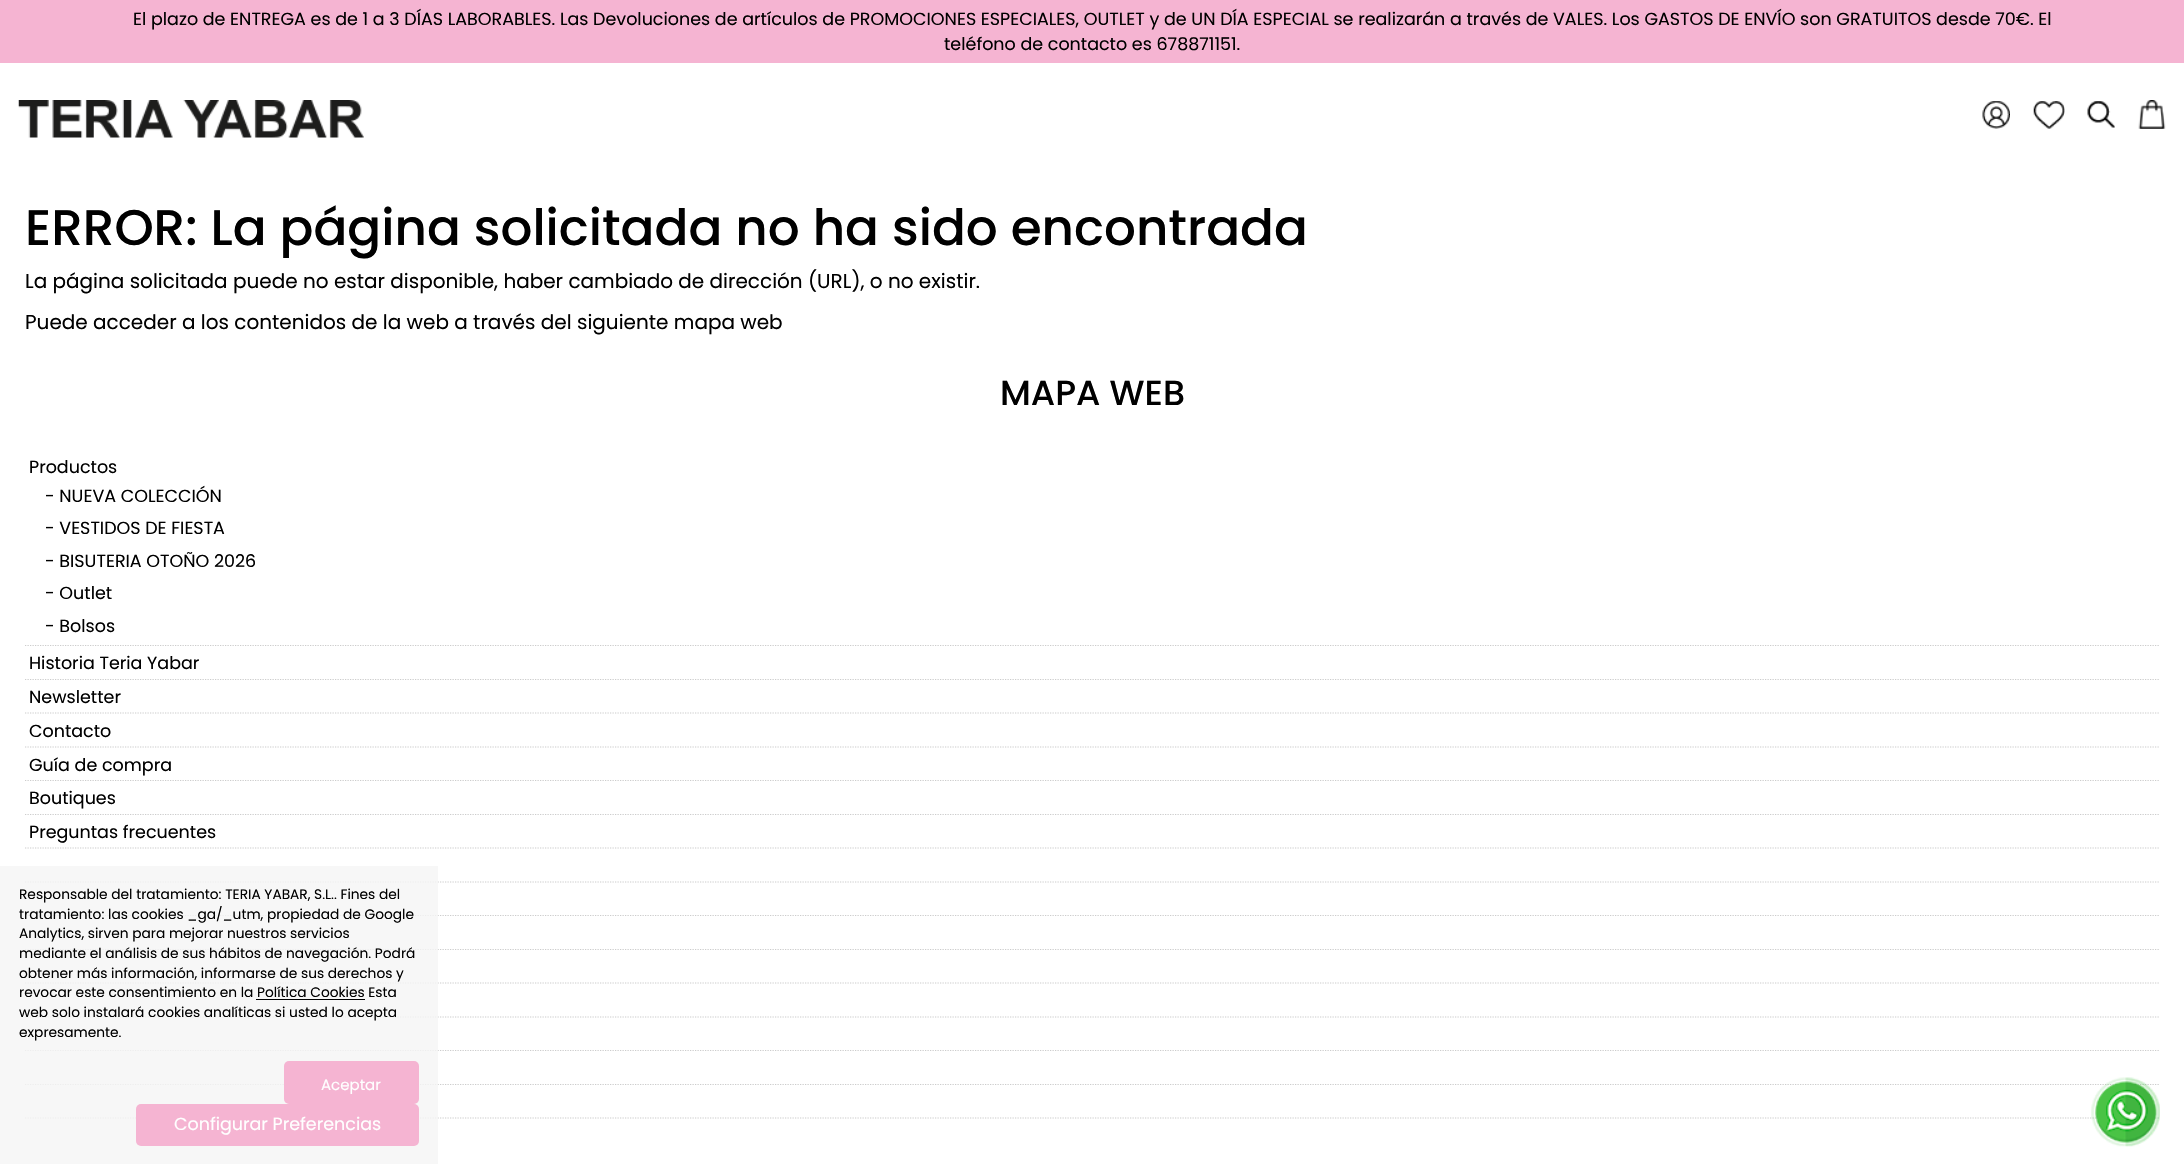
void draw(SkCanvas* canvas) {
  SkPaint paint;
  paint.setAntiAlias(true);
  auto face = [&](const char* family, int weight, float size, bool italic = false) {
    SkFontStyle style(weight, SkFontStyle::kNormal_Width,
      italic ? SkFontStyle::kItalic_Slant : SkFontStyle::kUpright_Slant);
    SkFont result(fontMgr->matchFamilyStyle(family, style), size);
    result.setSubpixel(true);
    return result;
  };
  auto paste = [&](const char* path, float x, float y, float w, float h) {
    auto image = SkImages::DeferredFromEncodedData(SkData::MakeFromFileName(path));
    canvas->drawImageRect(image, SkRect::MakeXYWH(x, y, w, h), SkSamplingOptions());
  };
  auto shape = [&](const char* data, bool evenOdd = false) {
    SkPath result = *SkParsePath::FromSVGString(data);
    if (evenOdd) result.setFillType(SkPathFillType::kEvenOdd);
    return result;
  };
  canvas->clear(0xffffffff);
  paint.setColor(0xfff5b4d2);
  canvas->drawRect(SkRect::MakeXYWH(0, 0, 2184, 63), paint);
  paste("img/1.png", 18, 100, 346, 38);
  paste("img/2.png", 1982, 101, 28, 28);
  paste("img/3.png", 2033, 101, 32, 28);
  paste("img/4.png", 2087, 101, 28, 27);
  paste("img/5.png", 2138, 100, 28, 29);
  paint.setStroke(true);
  paint.setStrokeWidth(1.2f);
  paint.setColor(0xffcccccc);
  paint.setPathEffect(SkDashPathEffect::Make({{1.25f, 1.25f}}, 0));
  canvas->drawPath(shape("M25 645.5H2160"), paint);
  paint.setPathEffect(nullptr);
  paint.setPathEffect(SkDashPathEffect::Make({{1.25f, 1.25f}}, 0));
  canvas->drawPath(shape("M25 679.5H2160"), paint);
  paint.setPathEffect(nullptr);
  paint.setPathEffect(SkDashPathEffect::Make({{1.25f, 1.25f}}, 0));
  canvas->drawPath(shape("M25 713H2160"), paint);
  paint.setPathEffect(nullptr);
  paint.setPathEffect(SkDashPathEffect::Make({{1.25f, 1.25f}}, 0));
  canvas->drawPath(shape("M25 747H2160"), paint);
  paint.setPathEffect(nullptr);
  paint.setPathEffect(SkDashPathEffect::Make({{1.25f, 1.25f}}, 0));
  canvas->drawPath(shape("M25 780.5H2160"), paint);
  paint.setPathEffect(nullptr);
  paint.setPathEffect(SkDashPathEffect::Make({{1.25f, 1.25f}}, 0));
  canvas->drawPath(shape("M25 814.5H2160"), paint);
  paint.setPathEffect(nullptr);
  paint.setPathEffect(SkDashPathEffect::Make({{1.25f, 1.25f}}, 0));
  canvas->drawPath(shape("M25 848H2160"), paint);
  paint.setPathEffect(nullptr);
  paint.setPathEffect(SkDashPathEffect::Make({{1.25f, 1.25f}}, 0));
  canvas->drawPath(shape("M25 882H2160"), paint);
  paint.setPathEffect(nullptr);
  paint.setPathEffect(SkDashPathEffect::Make({{1.25f, 1.25f}}, 0));
  canvas->drawPath(shape("M25 915.5H2160"), paint);
  paint.setPathEffect(nullptr);
  paint.setPathEffect(SkDashPathEffect::Make({{1.25f, 1.25f}}, 0));
  canvas->drawPath(shape("M25 949.5H2160"), paint);
  paint.setPathEffect(nullptr);
  paint.setPathEffect(SkDashPathEffect::Make({{1.25f, 1.25f}}, 0));
  canvas->drawPath(shape("M25 983H2160"), paint);
  paint.setPathEffect(nullptr);
  paint.setPathEffect(SkDashPathEffect::Make({{1.25f, 1.25f}}, 0));
  canvas->drawPath(shape("M25 1017H2160"), paint);
  paint.setPathEffect(nullptr);
  paint.setPathEffect(SkDashPathEffect::Make({{1.25f, 1.25f}}, 0));
  canvas->drawPath(shape("M25 1050.5H2160"), paint);
  paint.setPathEffect(nullptr);
  paint.setPathEffect(SkDashPathEffect::Make({{1.25f, 1.25f}}, 0));
  canvas->drawPath(shape("M25 1084.5H2160"), paint);
  paint.setPathEffect(nullptr);
  paint.setPathEffect(SkDashPathEffect::Make({{1.25f, 1.25f}}, 0));
  canvas->drawPath(shape("M25 1118H2160"), paint);
  paint.setPathEffect(nullptr);
  paint.setStroke(false);
  paint.setColor(0xccf5f5f5);
  canvas->drawRect(SkRect::MakeXYWH(0, 866, 438, 298), paint);
  paint.setColor(0xff000000);
  canvas->drawRect(SkRect::MakeXYWH(256, 999, 109, 1), paint);
  paint.setColor(0xfff5b4d2);
  canvas->drawRoundRect(SkRect::MakeXYWH(284, 1061, 135, 43), 5, 5, paint);
  canvas->drawRoundRect(SkRect::MakeXYWH(136, 1104, 283, 42), 5, 5, paint);
  paste("img/6.png", 2091, 1077, 69, 70);
  auto f0 = face("Poppins", 400, 17.5f);
  paint.setColor(0xff000000);
  canvas->drawString("El plazo de ENTREGA es de 1 a 3 DÍAS LABORABLES. Las Devoluciones de artículos de PROMOCIONES ESPECIALES, OUTLET y de UN DÍA ESPECIAL se realizarán a través de VALES. Los GASTOS DE ENVÍO son GRATUITOS desde 70€. El", 133, 25, f0, paint);
  canvas->drawString("teléfono de contacto es 678871151.", 944, 50, f0, paint);
  auto f1 = face("Poppins", 500, 50);
  canvas->drawString("ERROR: La página solicitada no ha sido encontrada", 25, 245, f1, paint);
  auto f2 = face("Poppins", 400, 20);
  canvas->drawString("La página solicitada puede no estar disponible, haber cambiado de dirección (URL), o no existir.", 25, 288, f2, paint);
  canvas->drawString("Puede acceder a los contenidos de la web a través del siguiente mapa web", 25, 329, f2, paint);
  auto f3 = face("Poppins", 500, 35);
  canvas->drawString("MAPA WEB", 1000, 405, f3, paint);
  {
    const struct { const char* s; float x, y; } items[] = {
      {"Productos", 29, 473},
      {"- NUEVA COLECCIÓN", 45, 502},
      {"- VESTIDOS DE FIESTA", 45, 534},
      {"- BISUTERIA OTOÑO 2026", 45, 567},
      {"- Outlet", 45, 599},
      {"- Bolsos", 45, 632},
      {"Historia Teria Yabar", 29, 669},
      {"Newsletter", 29, 703},
      {"Contacto", 29, 737},
      {"Guía de compra", 29, 771},
      {"Boutiques", 29, 804},
      {"Preguntas frecuentes", 29, 838},
    };
    for (auto [s, x, y] : items) {
      canvas->drawString(s, x, y, f0, paint);
    }
  }
  auto f4 = face("Poppins", 400, 13.75f);
  {
    const struct { const char* s; float x, y; } items[] = {
      {"Responsable del tratamiento: TERIA YABAR, S.L.. Fines del", 19, 899},
      {"tratamiento: las cookies _ga/_utm, propiedad de Google", 19, 919},
      {"Analytics, sirven para mejorar nuestros servicios", 19, 938},
      {"mediante el análisis de sus hábitos de navegación. Podrá", 19, 958},
      {"obtener más información, informarse de sus derechos y", 19, 978},
      {"revocar este consentimiento en la Política Cookies Esta", 19, 997},
      {"web solo instalará cookies analíticas si usted lo acepta", 19, 1017},
      {"expresamente.", 19, 1037},
    };
    for (auto [s, x, y] : items) {
      canvas->drawString(s, x, y, f4, paint);
    }
  }
  auto f5 = face("Poppins", 400, 15);
  paint.setColor(0xffffffff);
  canvas->drawString("Aceptar", 321, 1090, f5, paint);
  canvas->drawString("Configurar Preferencias", 174, 1130, f0, paint);
}
